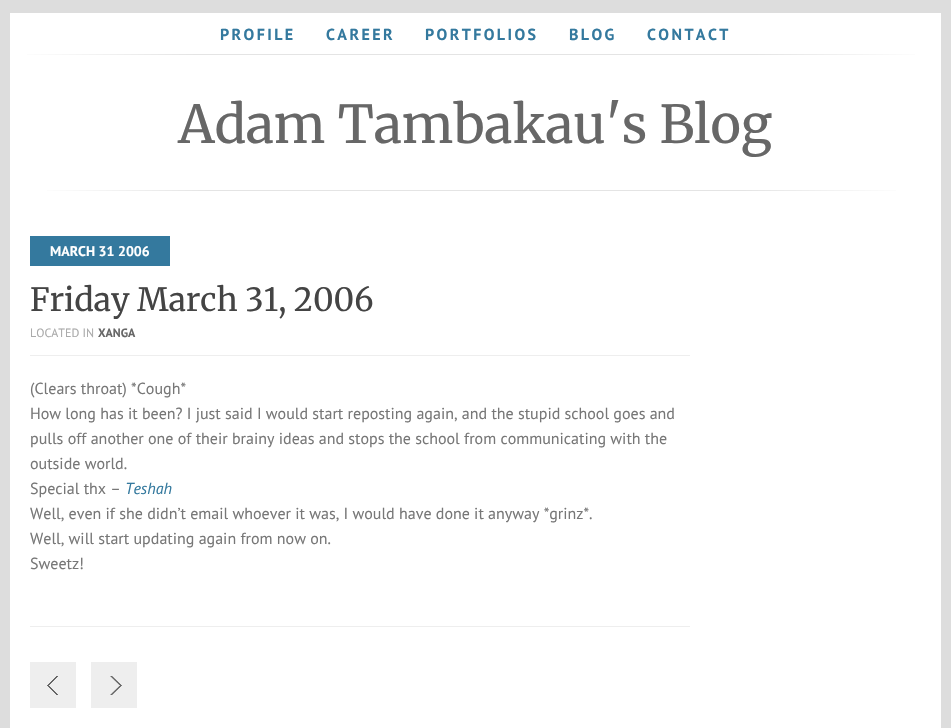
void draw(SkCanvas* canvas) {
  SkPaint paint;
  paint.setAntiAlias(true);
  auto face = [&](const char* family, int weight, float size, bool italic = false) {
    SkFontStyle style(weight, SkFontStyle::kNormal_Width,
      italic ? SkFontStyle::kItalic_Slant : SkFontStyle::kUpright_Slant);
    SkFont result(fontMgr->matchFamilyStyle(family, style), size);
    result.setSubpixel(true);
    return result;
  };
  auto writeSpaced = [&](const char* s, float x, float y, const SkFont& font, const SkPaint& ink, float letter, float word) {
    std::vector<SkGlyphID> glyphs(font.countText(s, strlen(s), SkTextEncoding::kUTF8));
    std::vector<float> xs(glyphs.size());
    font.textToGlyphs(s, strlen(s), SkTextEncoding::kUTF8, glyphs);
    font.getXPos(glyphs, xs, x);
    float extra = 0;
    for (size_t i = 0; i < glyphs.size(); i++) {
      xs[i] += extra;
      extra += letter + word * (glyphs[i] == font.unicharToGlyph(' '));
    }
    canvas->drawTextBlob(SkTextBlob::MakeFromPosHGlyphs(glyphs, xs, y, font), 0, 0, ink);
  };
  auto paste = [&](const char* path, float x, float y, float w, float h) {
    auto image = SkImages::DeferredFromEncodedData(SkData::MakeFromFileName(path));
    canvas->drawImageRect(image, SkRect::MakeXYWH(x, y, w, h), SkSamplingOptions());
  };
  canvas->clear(0xffdddddd);
  paint.setColor(0xffffffff);
  canvas->drawRect(SkRect::MakeXYWH(10, 13, 931, 715), paint);
  {
    const SkColor colors[] = {0xffffffff, 0xffe4e4e4, 0xffe4e4e4, 0xffffffff};
    const float stops[] = {0, 0.2f, 0.8f, 0.99f};
    const SkPoint ends[] = {{10, 55}, {941, 54}};
    paint.setShader(SkGradientShader::MakeLinear(ends, colors, stops, 4, SkTileMode::kClamp));
    paint.setAlpha(255);
  }
  canvas->drawRect(SkRect::MakeXYWH(27, 54, 888, 1), paint);
  {
    const SkColor colors[] = {0xffffffff, 0xffe4e4e4, 0xffe4e4e4, 0xffffffff};
    const float stops[] = {0, 0.2f, 0.8f, 0.99f};
    const SkPoint ends[] = {{30, 191}, {921, 190}};
    paint.setShader(SkGradientShader::MakeLinear(ends, colors, stops, 4, SkTileMode::kClamp));
    paint.setAlpha(255);
  }
  canvas->drawRect(SkRect::MakeXYWH(47, 190, 849, 1), paint);
  paint.setShader(nullptr);
  {
    const struct { float x, y, w, h; SkColor color; } items[] = {
      {30, 236, 140, 30, 0xff34799e},
      {30, 355, 660, 1, 0xffeeeeee},
      {30, 626, 660, 1, 0xffeeeeee},
      {30, 662, 46, 46, 0xffeeeeee},
    };
    for (auto [x, y, w, h, color] : items) {
      paint.setColor(color);
      canvas->drawRect(SkRect::MakeXYWH(x, y, w, h), paint);
    }
  }
  paste("img/1.png", 47, 676, 11, 19);
  canvas->drawRect(SkRect::MakeXYWH(91, 662, 46, 46), paint);
  paste("img/2.png", 110, 676, 12, 19);
  auto f0 = face("PT Sans", 700, 16);
  paint.setColor(0xff34799e);
  {
    const struct { const char* s; float x, y; } items[] = {
      {"PROFILE", 220, 40},
      {"CAREER", 326, 40},
      {"PORTFOLIOS", 425, 40},
      {"BLOG", 569, 40},
      {"CONTACT", 647, 40},
    };
    for (auto [s, x, y] : items) {
      writeSpaced(s, x, y, f0, paint, 2.4f, 0);
    }
  }
  auto f1 = face("Merriweather", 400, 52);
  paint.setColor(0xff676767);
  canvas->drawString("Adam Tambakau's Blog", 178, 143, f1, paint);
  auto f2 = face("PT Sans", 700, 14);
  paint.setColor(0xffffffff);
  canvas->drawString("MARCH 31 2006", 50, 256, f2, paint);
  auto f3 = face("Merriweather", 400, 32);
  paint.setColor(0xff444444);
  canvas->drawString("Friday March 31, 2006", 30, 311, f3, paint);
  auto f4 = face("PT Sans", 400, 12);
  paint.setColor(0xffaaaaaa);
  canvas->drawString("LOCATED IN", 30, 337, f4, paint);
  auto f5 = face("PT Sans", 700, 12);
  paint.setColor(0xff676767);
  canvas->drawString("XANGA", 98, 337, f5, paint);
  auto f6 = face("PT Sans", 400, 16);
  paint.setColor(0xff777777);
  {
    const struct { const char* s; float x, y; } items[] = {
      {"(Clears throat) *Cough*", 30, 394},
      {"How long has it been? I just said I would start reposting again, and the stupid school goes and", 30, 419},
      {"pulls off another one of their brainy ideas and stops the school from communicating with the", 30, 444},
      {"outside world.", 30, 469},
      {"Special thx –", 30, 494},
    };
    for (auto [s, x, y] : items) {
      canvas->drawString(s, x, y, f6, paint);
    }
  }
  auto f7 = face("PT Sans", 400, 16, true);
  paint.setColor(0xff34799e);
  canvas->drawString("Teshah", 125, 494, f7, paint);
  paint.setColor(0xff777777);
  {
    const struct { const char* s; float x, y; } items[] = {
      {"Well, even if she didn’t email whoever it was, I would have done it anyway *grinz*.", 30, 519},
      {"Well, will start updating again from now on.", 30, 544},
      {"Sweetz!", 30, 569},
    };
    for (auto [s, x, y] : items) {
      canvas->drawString(s, x, y, f6, paint);
    }
  }
}
